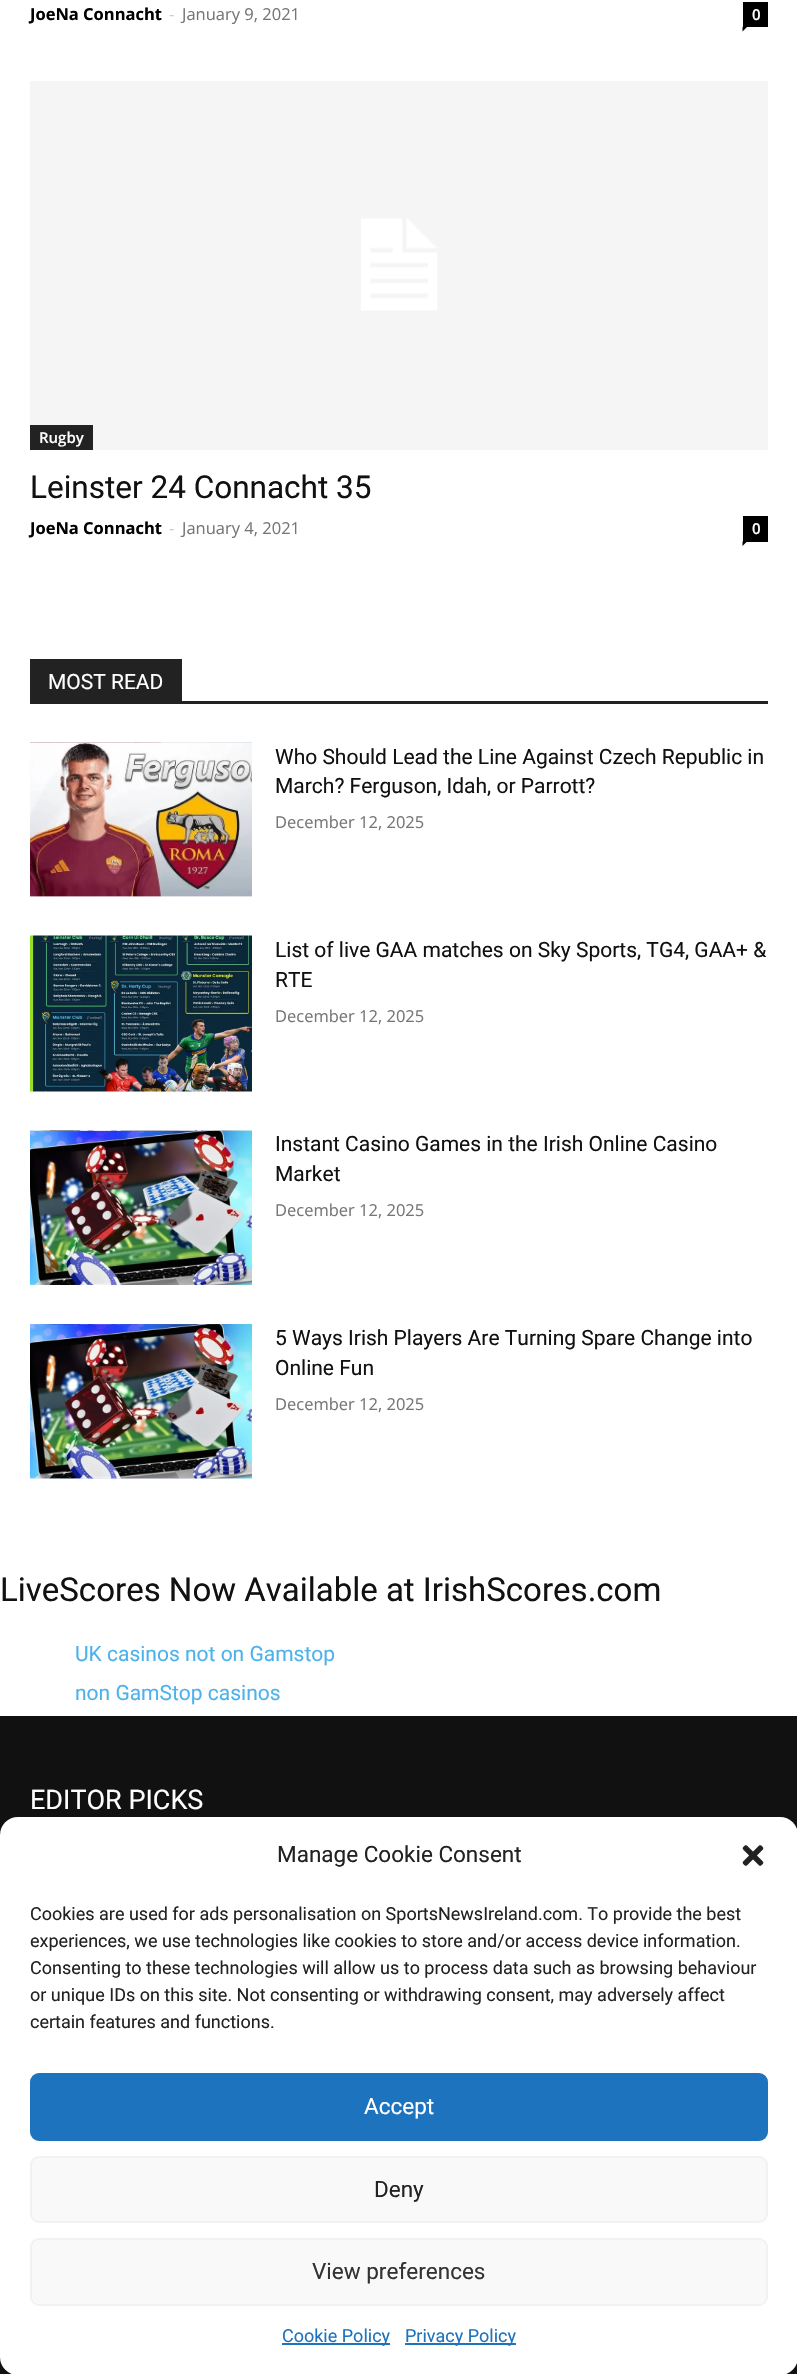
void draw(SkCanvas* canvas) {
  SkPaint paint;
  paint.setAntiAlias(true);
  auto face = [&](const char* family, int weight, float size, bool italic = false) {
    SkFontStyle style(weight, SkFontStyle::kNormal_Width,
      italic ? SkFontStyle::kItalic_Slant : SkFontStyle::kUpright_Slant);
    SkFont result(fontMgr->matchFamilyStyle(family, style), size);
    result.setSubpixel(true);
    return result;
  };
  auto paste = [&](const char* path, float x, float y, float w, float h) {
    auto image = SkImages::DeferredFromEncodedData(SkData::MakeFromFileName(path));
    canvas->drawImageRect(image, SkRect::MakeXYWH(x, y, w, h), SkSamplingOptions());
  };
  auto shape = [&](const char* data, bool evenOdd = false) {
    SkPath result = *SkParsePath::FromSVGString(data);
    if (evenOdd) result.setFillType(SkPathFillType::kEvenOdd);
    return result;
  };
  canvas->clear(0xffffffff);
  paint.setColor(0xff000000);
  canvas->drawRect(SkRect::MakeXYWH(743, 2, 25, 25), paint);
  canvas->drawPath(shape("M742.5 27H747L742.5 31.5Z"), paint);
  paste("img/1.png", 30, 81, 738, 369);
  paint.setColor(0xff222222);
  canvas->drawRect(SkRect::MakeXYWH(30, 425, 63, 25), paint);
  paint.setColor(0xff000000);
  canvas->drawRect(SkRect::MakeXYWH(743, 516, 25, 26), paint);
  canvas->drawPath(shape("M742.5 541.5H747L742.5 546Z"), paint);
  paint.setColor(0xff222222);
  canvas->drawRect(SkRect::MakeXYWH(30, 701, 738, 3), paint);
  canvas->drawRect(SkRect::MakeXYWH(30, 659, 152, 42), paint);
  paste("img/2.png", 30, 742, 222, 155);
  paste("img/3.png", 30, 935, 222, 157);
  paste("img/4.png", 30, 1130, 222, 155);
  paste("img/5.png", 30, 1324, 222, 155);
  paint.setColor(0xff111111);
  canvas->drawRect(SkRect::MakeXYWH(0, 1716, 797, 658), paint);
  paint.setColor(0xffffffff);
  canvas->drawRoundRect(SkRect::MakeXYWH(0, 1817, 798, 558), 18, 18, paint);
  paste("img/6.png", 742, 1845, 22, 21);
  paint.setColor(0xff1e73be);
  canvas->drawRoundRect(SkRect::MakeXYWH(31, 2074, 736, 66), 8, 8, paint);
  paint.setStroke(true);
  paint.setStrokeWidth(2);
  canvas->drawRoundRect(SkRect::MakeXYWH(31, 2074, 736, 66), 8, 8, paint);
  paint.setStroke(false);
  paint.setColor(0xfff9f9f9);
  canvas->drawRoundRect(SkRect::MakeXYWH(31, 2157, 736, 65), 8, 8, paint);
  paint.setStroke(true);
  paint.setColor(0xfff2f2f2);
  canvas->drawRoundRect(SkRect::MakeXYWH(31, 2157, 736, 65), 8, 8, paint);
  paint.setStroke(false);
  paint.setColor(0xfff9f9f9);
  canvas->drawRoundRect(SkRect::MakeXYWH(31, 2239, 736, 66), 8, 8, paint);
  paint.setStroke(true);
  paint.setColor(0xfff2f2f2);
  canvas->drawRoundRect(SkRect::MakeXYWH(31, 2239, 736, 66), 8, 8, paint);
  paint.setStroke(false);
  paint.setColor(0xff1e73be);
  canvas->drawRect(SkRect::MakeXYWH(282, 2343, 108, 2), paint);
  canvas->drawRect(SkRect::MakeXYWH(405, 2343, 111, 2), paint);
  auto f0 = face("Open Sans", 700, 16.5f);
  paint.setColor(0xff000000);
  canvas->drawString("JoeNa Connacht", 30, 20, f0, paint);
  auto f1 = face("Open Sans", 400, 16.5f);
  paint.setColor(0xffcccccc);
  canvas->drawString("-", 169, 20, f1, paint);
  paint.setColor(0xff767676);
  canvas->drawString("January 9, 2021", 182, 20, f1, paint);
  auto f2 = face("Open Sans", 600, 15);
  paint.setColor(0xffffffff);
  canvas->drawString("0", 752, 20, f2, paint);
  canvas->drawString("Rugby", 39, 443, f2, paint);
  auto f3 = face("Roboto", 400, 31.5f);
  paint.setColor(0xff111111);
  canvas->drawString("Leinster 24 Connacht 35", 30, 498, f3, paint);
  paint.setColor(0xff000000);
  canvas->drawString("JoeNa Connacht", 30, 534, f0, paint);
  paint.setColor(0xffcccccc);
  canvas->drawString("-", 169, 534, f1, paint);
  paint.setColor(0xff767676);
  canvas->drawString("January 4, 2021", 182, 534, f1, paint);
  paint.setColor(0xffffffff);
  canvas->drawString("0", 752, 534, f2, paint);
  auto f4 = face("Roboto", 400, 21);
  canvas->drawString("MOST READ", 48, 689, f4, paint);
  paint.setColor(0xff111111);
  canvas->drawString("Who Should Lead the Line Against Czech Republic in", 275, 764, f4, paint);
  canvas->drawString("March? Ferguson, Idah, or Parrott?", 275, 793, f4, paint);
  paint.setColor(0xff767676);
  canvas->drawString("December 12, 2025", 275, 828, f1, paint);
  paint.setColor(0xff111111);
  canvas->drawString("List of live GAA matches on Sky Sports, TG4, GAA+ &", 275, 957, f4, paint);
  canvas->drawString("RTE", 275, 987, f4, paint);
  paint.setColor(0xff767676);
  canvas->drawString("December 12, 2025", 275, 1022, f1, paint);
  paint.setColor(0xff111111);
  canvas->drawString("Instant Casino Games in the Irish Online Casino", 275, 1151, f4, paint);
  canvas->drawString("Market", 275, 1181, f4, paint);
  paint.setColor(0xff767676);
  canvas->drawString("December 12, 2025", 275, 1216, f1, paint);
  paint.setColor(0xff111111);
  canvas->drawString("5 Ways Irish Players Are Turning Spare Change into", 275, 1345, f4, paint);
  canvas->drawString("Online Fun", 275, 1375, f4, paint);
  paint.setColor(0xff767676);
  canvas->drawString("December 12, 2025", 275, 1410, f1, paint);
  auto f5 = face("Roboto", 400, 33);
  paint.setColor(0xff111111);
  canvas->drawString("LiveScores Now Available at IrishScores.com", 0, 1601, f5, paint);
  paint.setColor(0xff4db2ec);
  canvas->drawString("UK casinos not on Gamstop", 75, 1661, f4, paint);
  canvas->drawString("non GamStop casinos", 75, 1700, f4, paint);
  auto f6 = face("Roboto", 400, 27);
  paint.setColor(0xffffffff);
  canvas->drawString("EDITOR PICKS", 30, 1809, f6, paint);
  auto f7 = face("Roboto", 400, 22.5f);
  paint.setColor(0xff222222);
  canvas->drawString("Manage Cookie Consent", 277, 1862, f7, paint);
  auto f8 = face("Roboto", 400, 18);
  {
    const struct { const char* s; float x, y; } items[] = {
      {"Cookies are used for ads personalisation on SportsNewsIreland.com. To provide the best", 30, 1920},
      {"experiences, we use technologies like cookies to store and/or access device information.", 30, 1947},
      {"Consenting to these technologies will allow us to process data such as browsing behaviour", 30, 1974},
      {"or unique IDs on this site. Not consenting or withdrawing consent, may adversely affect", 30, 2001},
      {"certain features and functions.", 30, 2028},
    };
    for (auto [s, x, y] : items) {
      canvas->drawString(s, x, y, f8, paint);
    }
  }
  paint.setColor(0xffffffff);
  canvas->drawString("Accept", 364, 2114, f7, paint);
  paint.setColor(0xff222222);
  canvas->drawString("Deny", 374, 2197, f7, paint);
  paint.setColor(0xff333333);
  canvas->drawString("View preferences", 312, 2279, f7, paint);
  paint.setColor(0xff1e73be);
  canvas->drawString("Cookie Policy", 282, 2342, f8, paint);
  canvas->drawString("Privacy Policy", 405, 2342, f8, paint);
}
